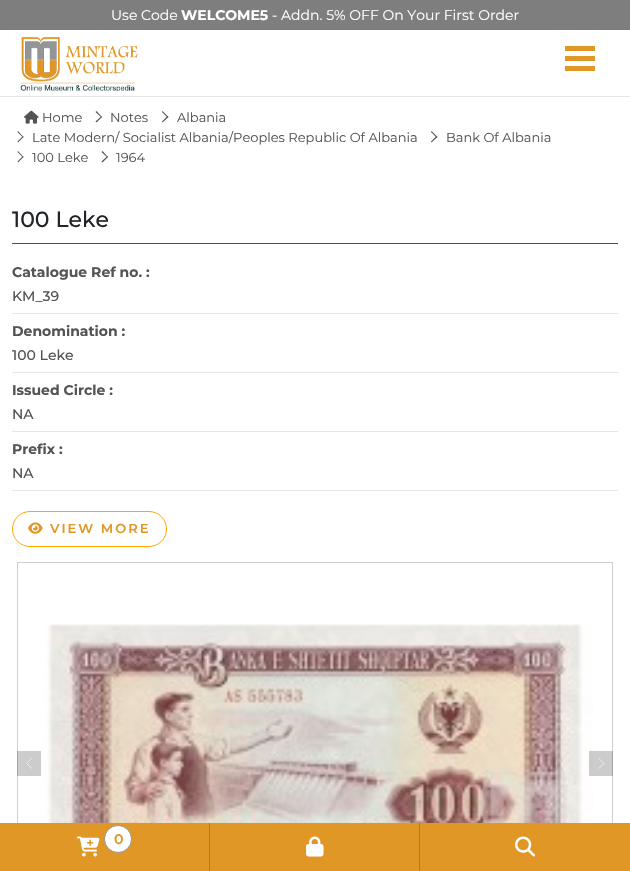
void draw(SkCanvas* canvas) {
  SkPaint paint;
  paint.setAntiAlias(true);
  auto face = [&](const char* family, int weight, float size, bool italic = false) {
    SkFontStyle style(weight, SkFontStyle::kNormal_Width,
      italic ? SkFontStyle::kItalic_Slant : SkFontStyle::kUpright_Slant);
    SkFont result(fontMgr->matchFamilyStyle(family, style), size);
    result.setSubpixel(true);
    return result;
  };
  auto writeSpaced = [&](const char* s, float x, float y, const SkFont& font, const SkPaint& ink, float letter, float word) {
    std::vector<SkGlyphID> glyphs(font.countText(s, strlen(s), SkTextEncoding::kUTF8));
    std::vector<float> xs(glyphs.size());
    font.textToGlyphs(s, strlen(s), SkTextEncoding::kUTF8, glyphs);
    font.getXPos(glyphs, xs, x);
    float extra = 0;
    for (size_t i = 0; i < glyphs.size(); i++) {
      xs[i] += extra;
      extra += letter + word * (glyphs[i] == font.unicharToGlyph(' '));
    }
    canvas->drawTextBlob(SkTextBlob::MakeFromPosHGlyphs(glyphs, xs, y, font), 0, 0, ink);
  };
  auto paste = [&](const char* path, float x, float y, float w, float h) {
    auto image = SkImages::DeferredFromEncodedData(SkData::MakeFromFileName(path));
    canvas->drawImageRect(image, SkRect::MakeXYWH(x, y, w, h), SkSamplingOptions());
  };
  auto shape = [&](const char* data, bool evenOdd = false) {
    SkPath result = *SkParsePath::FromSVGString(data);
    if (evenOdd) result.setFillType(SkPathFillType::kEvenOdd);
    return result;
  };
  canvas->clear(0xffffffff);
  paint.setColor(0xff7e7e7e);
  canvas->drawRect(SkRect::MakeXYWH(0, 0, 630, 30), paint);
  paint.setColor(0xffe7e7e7);
  canvas->drawRect(SkRect::MakeXYWH(0, 96, 630, 1), paint);
  paste("img/1.png", 20, 37, 118, 54);
  {
    const struct { float x, y, w, h; SkColor color; } items[] = {
      {565, 46, 30, 5, 0xffe19726},
      {565, 56, 30, 5, 0xffe19726},
      {565, 66, 30, 5, 0xffe19726},
    };
    for (auto [x, y, w, h, color] : items) {
      paint.setColor(color);
      canvas->drawRect(SkRect::MakeXYWH(x, y, w, h), paint);
    }
  }
  paste("img/2.png", 24, 110, 15, 14);
  paint.setColor(0xff545454);
  canvas->drawPath(shape("M96.5 111L102 117L101.5 117.5L95.5 112Z"), paint);
  canvas->drawPath(shape("M101.5 116L102 117L96.5 122.5L95.5 121.5Z"), paint);
  canvas->drawPath(shape("M162.5 111L168.5 117L167.5 117.5L162 112Z"), paint);
  canvas->drawPath(shape("M167.5 116L168.5 117L162.5 122.5L162 121.5Z"), paint);
  canvas->drawPath(shape("M18 131L23.5 137L23 137.5L17.5 132Z"), paint);
  canvas->drawPath(shape("M23 136L23.5 137L18 142.5L17.5 141.5Z"), paint);
  canvas->drawPath(shape("M431.5 131L437.5 137L436.5 137.5L431 132Z"), paint);
  canvas->drawPath(shape("M436.5 136L437.5 137L431.5 142.5L431 141.5Z"), paint);
  canvas->drawPath(shape("M18 151L23.5 157L23 157.5L17.5 152Z"), paint);
  canvas->drawPath(shape("M23 156L23.5 157L18 162.5L17.5 161.5Z"), paint);
  canvas->drawPath(shape("M102.5 151L108 157L107.5 157.5L101.5 152Z"), paint);
  canvas->drawPath(shape("M107.5 156L108 157L102.5 162.5L101.5 161.5Z"), paint);
  {
    const struct { float x, y, w, h; SkColor color; } items[] = {
      {12, 243, 606, 1, 0xff933232},
      {12, 313, 606, 1, 0xffe7e6e6},
      {12, 372, 606, 1, 0xffe7e6e6},
      {12, 431, 606, 1, 0xffe7e6e6},
      {12, 490, 606, 1, 0xffe7e6e6},
    };
    for (auto [x, y, w, h, color] : items) {
      paint.setColor(color);
      canvas->drawRect(SkRect::MakeXYWH(x, y, w, h), paint);
    }
  }
  paint.setStroke(true);
  paint.setStrokeWidth(1);
  paint.setColor(0xffffa500);
  canvas->drawRoundRect(SkRect::MakeXYWH(12.5f, 511.5f, 154, 35), 17.5f, 17.5f, paint);
  paste("img/3.png", 28, 522, 15, 12);
  paint.setColor(0xffcfcfcf);
  canvas->drawRect(SkRect::MakeXYWH(17.5f, 562.5f, 595, 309), paint);
  paste("img/4.png", 45, 624, 548, 199);
  paint.setStroke(false);
  paint.setColor(0x33000000);
  canvas->drawRect(SkRect::MakeXYWH(17, 751, 24, 25), paint);
  paint.setStroke(true);
  paint.setStrokeWidth(0.6f);
  paint.setColor(0xffffffff);
  canvas->drawPath(shape("M32 758L26.5 763.5L32 768.5"), paint);
  paint.setStroke(false);
  paint.setColor(0x33000000);
  canvas->drawRect(SkRect::MakeXYWH(589, 751, 24, 25), paint);
  paint.setStroke(true);
  paint.setColor(0xffffffff);
  canvas->drawPath(shape("M598.5 768.5L604 763.5L598.5 758"), paint);
  paint.setStroke(false);
  paint.setColor(0xffe19726);
  canvas->drawRect(SkRect::MakeXYWH(0, 823, 209, 48), paint);
  paint.setColor(0xffc77800);
  canvas->drawRect(SkRect::MakeXYWH(209, 823, 1, 48), paint);
  paste("img/5.png", 77, 836, 23, 21);
  paint.setColor(0xffffffff);
  canvas->drawCircle(118, 839, 13.5f, paint);
  paint.setStroke(true);
  paint.setStrokeWidth(1);
  paint.setColor(0xff939598);
  canvas->drawCircle(118, 839, 13.5f, paint);
  paint.setStroke(false);
  paint.setColor(0xffe19726);
  canvas->drawRect(SkRect::MakeXYWH(210, 823, 209, 48), paint);
  paint.setColor(0xffc77800);
  canvas->drawRect(SkRect::MakeXYWH(419, 823, 1, 48), paint);
  paste("img/6.png", 306, 836, 18, 21);
  paint.setColor(0xffe19726);
  canvas->drawRect(SkRect::MakeXYWH(420, 823, 210, 48), paint);
  paste("img/7.png", 515, 836, 20, 21);
  auto f0 = face("Montserrat", 400, 14);
  paint.setColor(0xffffffff);
  canvas->drawString("Use Code", 111, 20, f0, paint);
  auto f1 = face("Montserrat", 700, 14);
  canvas->drawString("WELCOME5", 181, 20, f1, paint);
  canvas->drawString("- Addn. 5% OFF On Your First Order", 272, 20, f0, paint);
  auto f2 = face("Montserrat", 400, 13);
  paint.setColor(0xff545454);
  {
    const struct { const char* s; float x, y; } items[] = {
      {"Home", 42, 122},
      {"Notes", 110, 122},
      {"Albania", 177, 122},
      {"Late Modern/ Socialist Albania/Peoples Republic Of Albania", 32, 142},
      {"Bank Of Albania", 446, 142},
      {"100 Leke", 32, 162},
      {"1964", 116, 162},
    };
    for (auto [s, x, y] : items) {
      canvas->drawString(s, x, y, f2, paint);
    }
  }
  auto f3 = face("Montserrat", 500, 22);
  paint.setColor(0xff212529);
  canvas->drawString("100 Leke", 12, 227, f3, paint);
  paint.setColor(0xff545454);
  canvas->drawString("Catalogue Ref no. :", 12, 277, f1, paint);
  auto f4 = face("Montserrat", 500, 14);
  canvas->drawString("KM_39", 12, 301, f4, paint);
  canvas->drawString("Denomination :", 12, 336, f1, paint);
  canvas->drawString("100 Leke", 12, 360, f4, paint);
  canvas->drawString("Issued Circle :", 12, 395, f1, paint);
  canvas->drawString("NA", 12, 419, f4, paint);
  canvas->drawString("Prefix :", 12, 454, f1, paint);
  canvas->drawString("NA", 12, 478, f4, paint);
  auto f5 = face("Montserrat", 600, 13);
  paint.setColor(0xffe19726);
  writeSpaced("VIEW MORE", 50, 533, f5, paint, 2, 0);
  auto f6 = face("Montserrat", 600, 14);
  canvas->drawString("0", 114, 844, f6, paint);
}
